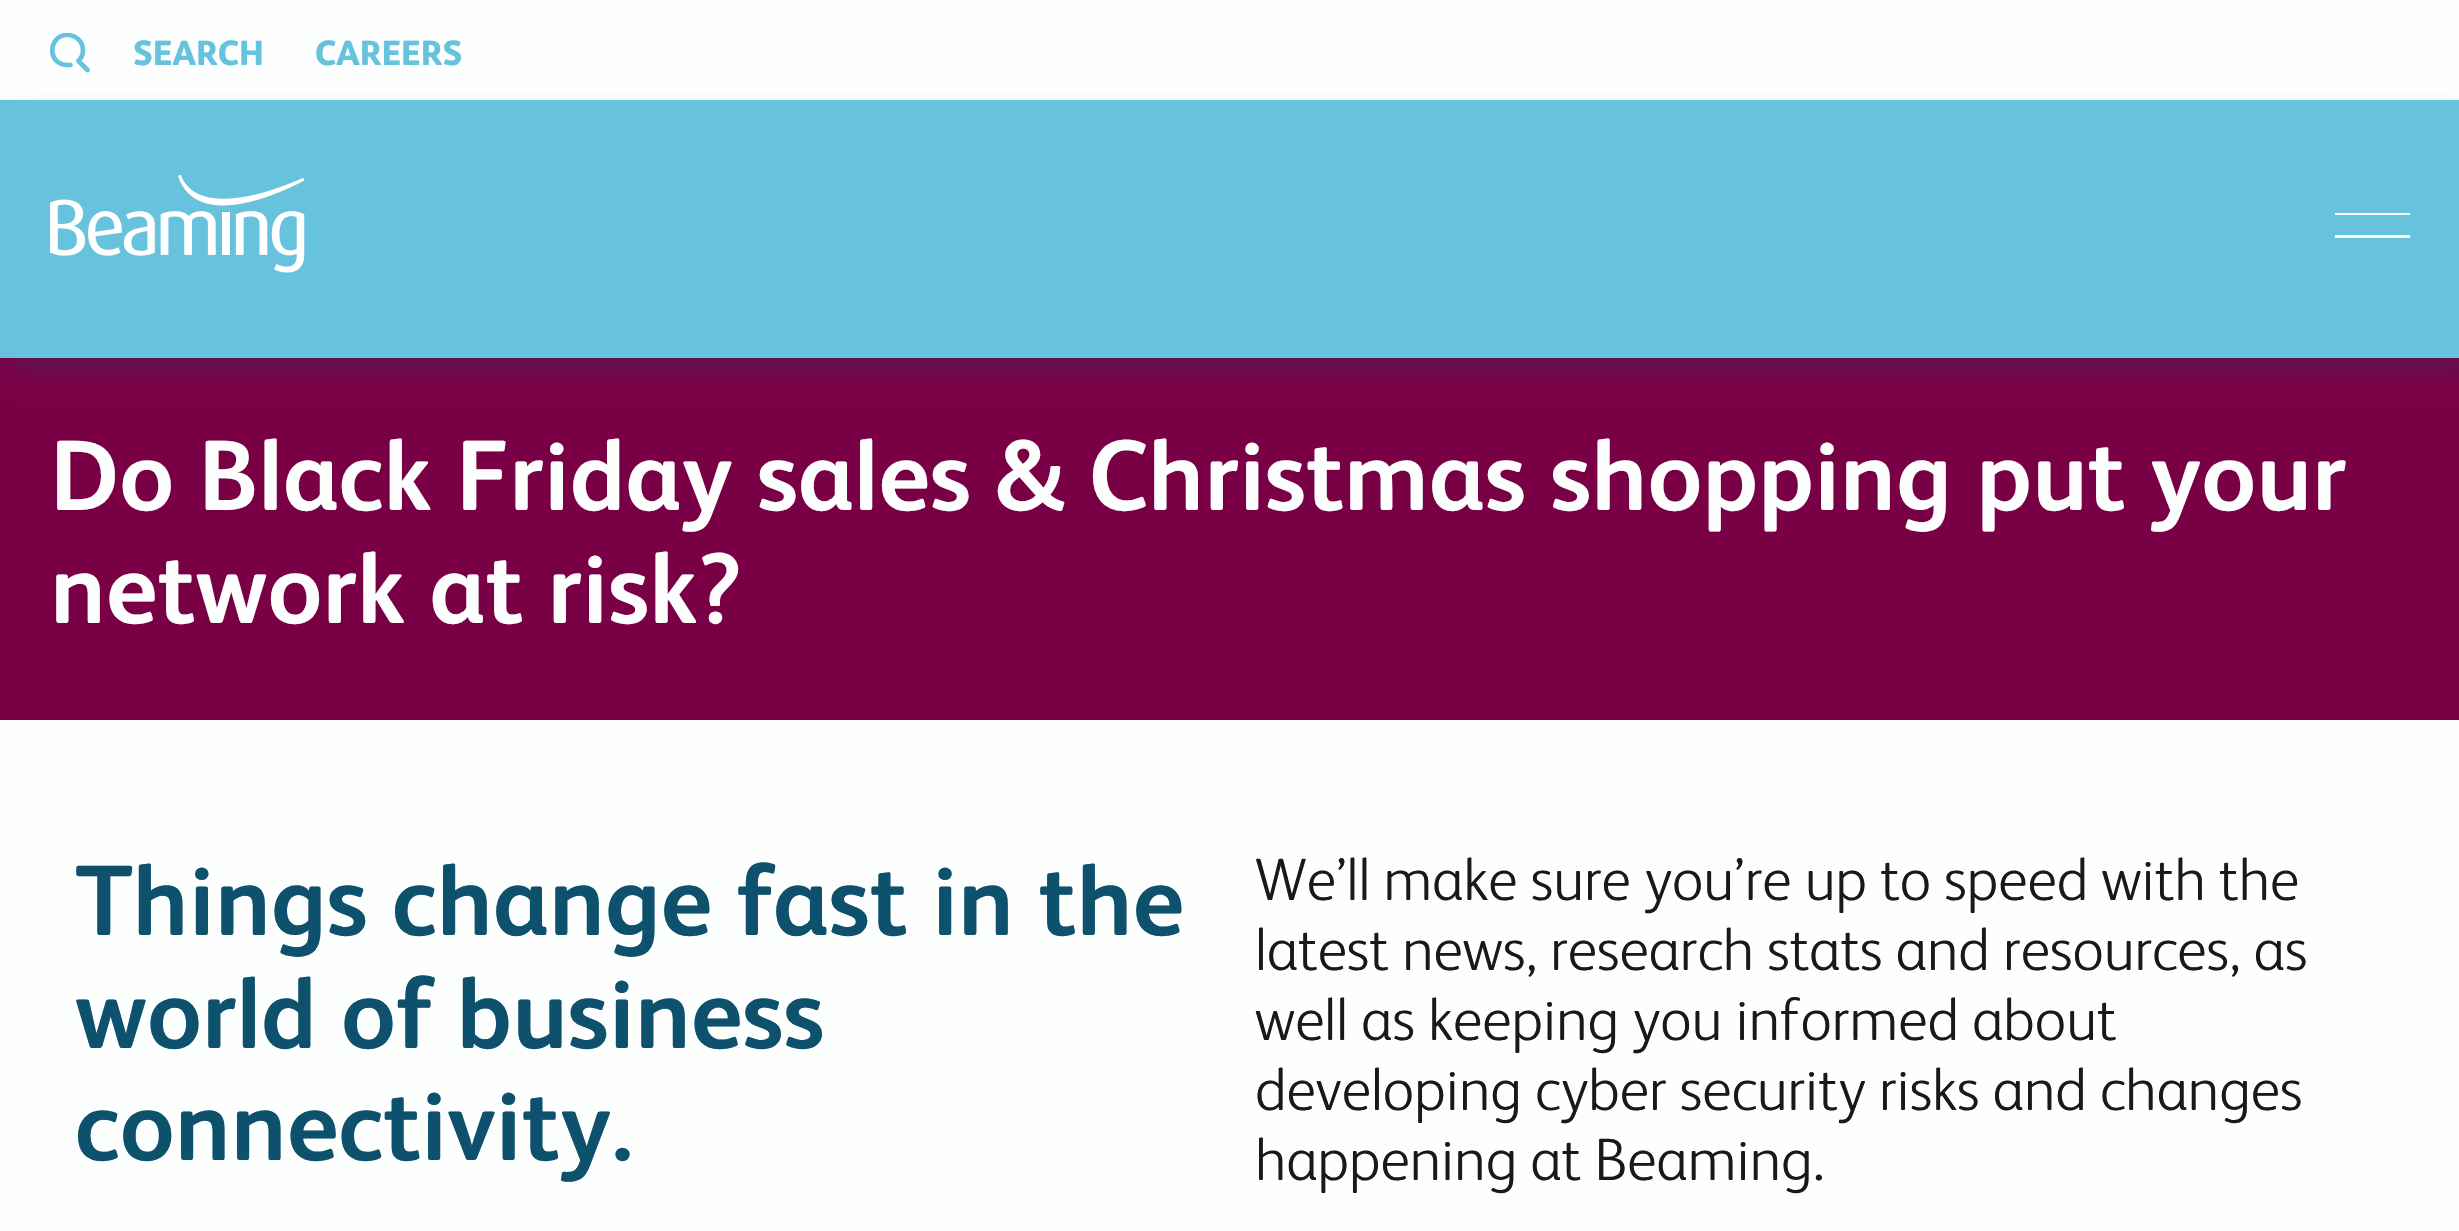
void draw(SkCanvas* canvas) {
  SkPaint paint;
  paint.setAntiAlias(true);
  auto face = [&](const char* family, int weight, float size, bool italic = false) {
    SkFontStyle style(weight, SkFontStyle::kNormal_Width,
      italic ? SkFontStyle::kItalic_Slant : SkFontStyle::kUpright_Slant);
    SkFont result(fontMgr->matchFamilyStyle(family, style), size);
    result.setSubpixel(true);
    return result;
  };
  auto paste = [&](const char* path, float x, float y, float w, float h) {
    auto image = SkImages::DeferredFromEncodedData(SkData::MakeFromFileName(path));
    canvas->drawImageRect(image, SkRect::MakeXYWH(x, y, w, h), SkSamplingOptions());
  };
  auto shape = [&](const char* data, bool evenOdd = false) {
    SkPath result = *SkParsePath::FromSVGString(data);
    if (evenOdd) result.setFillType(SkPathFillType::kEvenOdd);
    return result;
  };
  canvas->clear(0xfffdffff);
  canvas->save();
  canvas->clipRect(SkRect::MakeXYWH(50, 33, 40, 40));
  paint.setStroke(true);
  paint.setStrokeWidth(4.7f);
  paint.setStrokeCap(SkPaint::kRound_Cap);
  paint.setStrokeJoin(SkPaint::kRound_Join);
  paint.setColor(0xff66c2dd);
  canvas->drawPath(shape("M87.5 70L78.5 61C84.5 55 84.5 45 78.5 39.5C75.5 36.5 71.5 35 67.5 35C47 35 46.5 67.5 70.5 65"), paint);
  canvas->restore();
  paint.setStroke(false);
  paint.setColor(0xff7a0046);
  canvas->drawRect(SkRect::MakeXYWH(0, 358, 2459, 362), paint);
  paint.setColor(0x400d516d);
  paint.setMaskFilter(SkMaskFilter::MakeBlur(kNormal_SkBlurStyle, 12.5f));
  canvas->drawRect(SkRect::MakeXYWH(13, 113, 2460, 257), paint);
  paint.setMaskFilter(nullptr);
  paint.setColor(0xff66c2dd);
  canvas->drawRect(SkRect::MakeXYWH(0, 100, 2459, 258), paint);
  paste("img/1.png", 50, 175, 255, 98);
  canvas->save();
  canvas->clipRect(SkRect::MakeXYWH(2335, 213, 75, 25));
  paint.setStroke(true);
  paint.setStrokeWidth(5);
  paint.setStrokeJoin(SkPaint::kMiter_Join);
  paint.setColor(0xfffdffff);
  canvas->drawPath(shape("M2410 212.5H2335"), paint);
  canvas->drawPath(shape("M2410 237.5H2335"), paint);
  canvas->restore();
  auto f0 = face("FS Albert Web", 800, 35);
  paint.setStroke(false);
  paint.setColor(0xff66c2dd);
  canvas->drawString("SEARCH", 133, 65, f0, paint);
  canvas->drawString("CAREERS", 315, 65, f0, paint);
  auto f1 = face("FS Albert Web", 700, 100);
  paint.setColor(0xfffdffff);
  canvas->drawString("Do Black Friday sales & Christmas shopping put your", 50, 510, f1, paint);
  canvas->drawString("network at risk?", 50, 623, f1, paint);
  paint.setColor(0xff0d516d);
  {
    const struct { const char* s; float x, y; } items[] = {
      {"Things change fast in the", 75, 935},
      {"world of business", 75, 1048},
      {"connectivity.", 75, 1160},
    };
    for (auto [s, x, y] : items) {
      canvas->drawString(s, x, y, f1, paint);
    }
  }
  auto f2 = face("FS Albert Web", 300, 60);
  paint.setColor(0xff191919);
  {
    const struct { const char* s; float x, y; } items[] = {
      {"We’ll make sure you’re up to speed with the", 1255, 900},
      {"latest news, research stats and resources, as", 1255, 970},
      {"well as keeping you informed about", 1255, 1040},
      {"developing cyber security risks and changes", 1255, 1110},
      {"happening at Beaming.", 1255, 1180},
    };
    for (auto [s, x, y] : items) {
      canvas->drawString(s, x, y, f2, paint);
    }
  }
}
